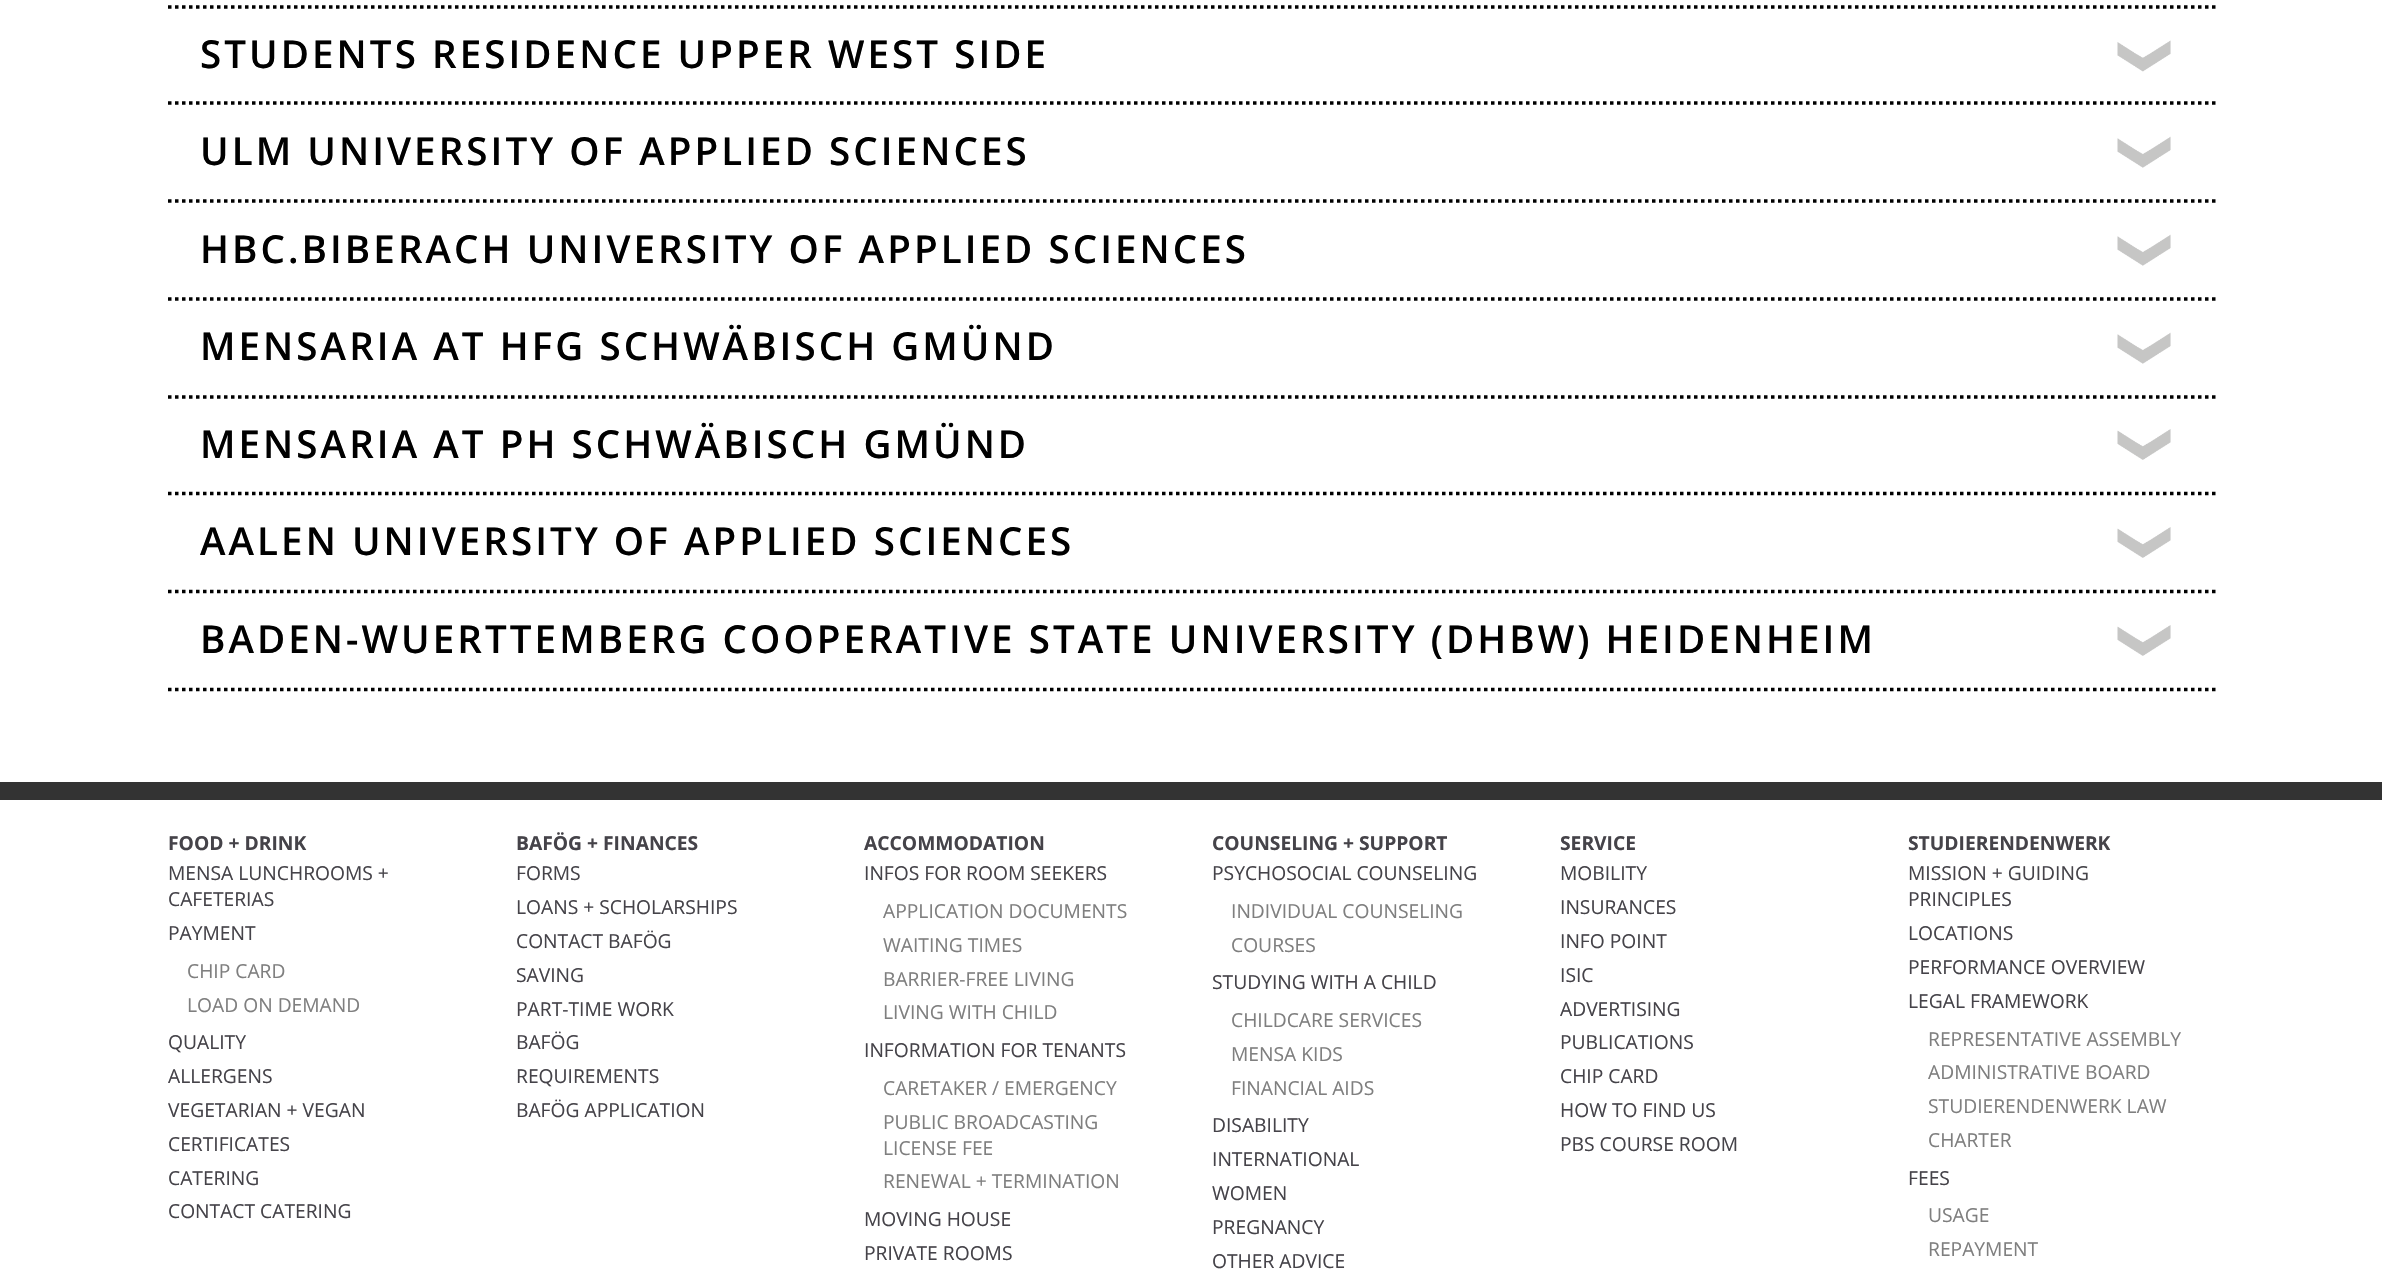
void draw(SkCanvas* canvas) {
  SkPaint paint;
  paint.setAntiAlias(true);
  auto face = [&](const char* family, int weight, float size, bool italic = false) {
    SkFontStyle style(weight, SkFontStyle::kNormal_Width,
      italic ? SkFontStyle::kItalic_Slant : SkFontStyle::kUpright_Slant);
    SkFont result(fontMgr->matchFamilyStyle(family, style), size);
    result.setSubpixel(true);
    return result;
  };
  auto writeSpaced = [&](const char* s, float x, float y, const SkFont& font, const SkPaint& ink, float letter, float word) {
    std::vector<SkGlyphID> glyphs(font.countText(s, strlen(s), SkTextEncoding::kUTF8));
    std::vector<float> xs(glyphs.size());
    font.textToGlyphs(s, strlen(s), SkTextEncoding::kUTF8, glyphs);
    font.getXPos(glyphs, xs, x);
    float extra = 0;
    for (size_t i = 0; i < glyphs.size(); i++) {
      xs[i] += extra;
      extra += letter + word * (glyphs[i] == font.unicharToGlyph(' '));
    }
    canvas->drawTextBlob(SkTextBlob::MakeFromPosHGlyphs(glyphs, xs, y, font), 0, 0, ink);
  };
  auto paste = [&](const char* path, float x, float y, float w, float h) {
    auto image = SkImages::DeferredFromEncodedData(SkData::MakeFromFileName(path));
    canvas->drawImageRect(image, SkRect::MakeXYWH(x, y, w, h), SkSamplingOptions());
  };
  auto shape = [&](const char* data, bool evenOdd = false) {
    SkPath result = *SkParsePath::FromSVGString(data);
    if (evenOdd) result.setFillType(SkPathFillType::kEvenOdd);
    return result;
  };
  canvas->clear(0xffffffff);
  paint.setStroke(true);
  paint.setStrokeWidth(3.5f);
  paint.setColor(0xff000000);
  paint.setPathEffect(SkDashPathEffect::Make({{3.5f, 3.5f}}, 0));
  canvas->drawPath(shape("M168 7H2215.5"), paint);
  paint.setPathEffect(nullptr);
  paste("img/1.png", 2117, 40, 54, 32);
  paint.setPathEffect(SkDashPathEffect::Make({{3.5f, 3.5f}}, 0));
  canvas->drawPath(shape("M168 103H2215.5"), paint);
  paint.setPathEffect(nullptr);
  paste("img/2.png", 2117, 136, 54, 32);
  paint.setPathEffect(SkDashPathEffect::Make({{3.5f, 3.5f}}, 0));
  canvas->drawPath(shape("M168 201H2215.5"), paint);
  paint.setPathEffect(nullptr);
  paste("img/3.png", 2117, 234, 54, 32);
  paint.setPathEffect(SkDashPathEffect::Make({{3.5f, 3.5f}}, 0));
  canvas->drawPath(shape("M168 299H2215.5"), paint);
  paint.setPathEffect(nullptr);
  paste("img/4.png", 2117, 332, 54, 32);
  paint.setPathEffect(SkDashPathEffect::Make({{3.5f, 3.5f}}, 0));
  canvas->drawPath(shape("M168 397H2215.5"), paint);
  paint.setPathEffect(nullptr);
  paste("img/5.png", 2117, 429, 54, 31);
  paint.setPathEffect(SkDashPathEffect::Make({{3.5f, 3.5f}}, 0));
  canvas->drawPath(shape("M168 493.5H2215.5"), paint);
  paint.setPathEffect(nullptr);
  paste("img/6.png", 2117, 527, 54, 31);
  paint.setPathEffect(SkDashPathEffect::Make({{3.5f, 3.5f}}, 0));
  canvas->drawPath(shape("M168 591.5H2215.5"), paint);
  paint.setPathEffect(nullptr);
  paint.setPathEffect(SkDashPathEffect::Make({{3.5f, 3.5f}}, 0));
  canvas->drawPath(shape("M168 689.5H2215.5"), paint);
  paint.setPathEffect(nullptr);
  paste("img/6.png", 2117, 625, 54, 31);
  paint.setStroke(false);
  paint.setColor(0xff333333);
  canvas->drawRect(SkRect::MakeXYWH(0, 782, 2382, 18), paint);
  auto f0 = face("Open Sans", 600, 38.5f);
  paint.setColor(0xff000000);
  {
    const struct { const char* s; float x, y; } items[] = {
      {"STUDENTS RESIDENCE UPPER WEST SIDE", 200, 68},
      {"ULM UNIVERSITY OF APPLIED SCIENCES", 200, 165},
      {"HBC.BIBERACH UNIVERSITY OF APPLIED SCIENCES", 200, 263},
      {"MENSARIA AT HFG SCHWÄBISCH GMÜND", 200, 360},
      {"MENSARIA AT PH SCHWÄBISCH GMÜND", 200, 458},
      {"AALEN UNIVERSITY OF APPLIED SCIENCES", 200, 555},
      {"BADEN-WUERTTEMBERG COOPERATIVE STATE UNIVERSITY (DHBW) HEIDENHEIM", 200, 653},
    };
    for (auto [s, x, y] : items) {
      writeSpaced(s, x, y, f0, paint, 3.08f, 0);
    }
  }
  auto f1 = face("Open Sans", 700, 19.25f);
  paint.setColor(0xff454349);
  canvas->drawString("FOOD + DRINK", 168, 850, f1, paint);
  auto f2 = face("Open Sans", 400, 19.25f);
  {
    const struct { const char* s; float x, y; } items[] = {
      {"MENSA LUNCHROOMS +", 168, 880},
      {"CAFETERIAS", 168, 906},
      {"PAYMENT", 168, 940},
    };
    for (auto [s, x, y] : items) {
      canvas->drawString(s, x, y, f2, paint);
    }
  }
  paint.setColor(0xff7f7f7f);
  canvas->drawString("CHIP CARD", 187, 978, f2, paint);
  canvas->drawString("LOAD ON DEMAND", 187, 1012, f2, paint);
  paint.setColor(0xff454349);
  {
    const struct { const char* s; float x, y; } items[] = {
      {"QUALITY", 168, 1049},
      {"ALLERGENS", 168, 1083},
      {"VEGETARIAN + VEGAN", 168, 1117},
      {"CERTIFICATES", 168, 1151},
      {"CATERING", 168, 1185},
      {"CONTACT CATERING", 168, 1218},
    };
    for (auto [s, x, y] : items) {
      canvas->drawString(s, x, y, f2, paint);
    }
  }
  canvas->drawString("BAFÖG + FINANCES", 516, 850, f1, paint);
  {
    const struct { const char* s; float x, y; } items[] = {
      {"FORMS", 516, 880},
      {"LOANS + SCHOLARSHIPS", 516, 914},
      {"CONTACT BAFÖG", 516, 948},
      {"SAVING", 516, 982},
      {"PART-TIME WORK", 516, 1016},
      {"BAFÖG", 516, 1049},
      {"REQUIREMENTS", 516, 1083},
      {"BAFÖG APPLICATION", 516, 1117},
    };
    for (auto [s, x, y] : items) {
      canvas->drawString(s, x, y, f2, paint);
    }
  }
  canvas->drawString("ACCOMMODATION", 864, 850, f1, paint);
  canvas->drawString("INFOS FOR ROOM SEEKERS", 864, 880, f2, paint);
  paint.setColor(0xff7f7f7f);
  {
    const struct { const char* s; float x, y; } items[] = {
      {"APPLICATION DOCUMENTS", 883, 918},
      {"WAITING TIMES", 883, 952},
      {"BARRIER-FREE LIVING", 883, 986},
      {"LIVING WITH CHILD", 883, 1019},
    };
    for (auto [s, x, y] : items) {
      canvas->drawString(s, x, y, f2, paint);
    }
  }
  paint.setColor(0xff454349);
  canvas->drawString("INFORMATION FOR TENANTS", 864, 1057, f2, paint);
  paint.setColor(0xff7f7f7f);
  {
    const struct { const char* s; float x, y; } items[] = {
      {"CARETAKER / EMERGENCY", 883, 1095},
      {"PUBLIC BROADCASTING", 883, 1129},
      {"LICENSE FEE", 883, 1155},
      {"RENEWAL + TERMINATION", 883, 1188},
    };
    for (auto [s, x, y] : items) {
      canvas->drawString(s, x, y, f2, paint);
    }
  }
  paint.setColor(0xff454349);
  canvas->drawString("MOVING HOUSE", 864, 1226, f2, paint);
  canvas->drawString("PRIVATE ROOMS", 864, 1260, f2, paint);
  canvas->drawString("COUNSELING + SUPPORT", 1212, 850, f1, paint);
  canvas->drawString("PSYCHOSOCIAL COUNSELING", 1212, 880, f2, paint);
  paint.setColor(0xff7f7f7f);
  canvas->drawString("INDIVIDUAL COUNSELING", 1231, 918, f2, paint);
  canvas->drawString("COURSES", 1231, 952, f2, paint);
  paint.setColor(0xff454349);
  canvas->drawString("STUDYING WITH A CHILD", 1212, 989, f2, paint);
  paint.setColor(0xff7f7f7f);
  {
    const struct { const char* s; float x, y; } items[] = {
      {"CHILDCARE SERVICES", 1231, 1027},
      {"MENSA KIDS", 1231, 1061},
      {"FINANCIAL AIDS", 1231, 1095},
    };
    for (auto [s, x, y] : items) {
      canvas->drawString(s, x, y, f2, paint);
    }
  }
  paint.setColor(0xff454349);
  {
    const struct { const char* s; float x, y; } items[] = {
      {"DISABILITY", 1212, 1132},
      {"INTERNATIONAL", 1212, 1166},
      {"WOMEN", 1212, 1200},
      {"PREGNANCY", 1212, 1234},
      {"OTHER ADVICE", 1212, 1268},
    };
    for (auto [s, x, y] : items) {
      canvas->drawString(s, x, y, f2, paint);
    }
  }
  canvas->drawString("SERVICE", 1560, 850, f1, paint);
  {
    const struct { const char* s; float x, y; } items[] = {
      {"MOBILITY", 1560, 880},
      {"INSURANCES", 1560, 914},
      {"INFO POINT", 1560, 948},
      {"ISIC", 1560, 982},
      {"ADVERTISING", 1560, 1016},
      {"PUBLICATIONS", 1560, 1049},
      {"CHIP CARD", 1560, 1083},
      {"HOW TO FIND US", 1560, 1117},
      {"PBS COURSE ROOM", 1560, 1151},
    };
    for (auto [s, x, y] : items) {
      canvas->drawString(s, x, y, f2, paint);
    }
  }
  canvas->drawString("STUDIERENDENWERK", 1908, 850, f1, paint);
  {
    const struct { const char* s; float x, y; } items[] = {
      {"MISSION + GUIDING", 1908, 880},
      {"PRINCIPLES", 1908, 906},
      {"LOCATIONS", 1908, 940},
      {"PERFORMANCE OVERVIEW", 1908, 974},
      {"LEGAL FRAMEWORK", 1908, 1008},
    };
    for (auto [s, x, y] : items) {
      canvas->drawString(s, x, y, f2, paint);
    }
  }
  paint.setColor(0xff7f7f7f);
  {
    const struct { const char* s; float x, y; } items[] = {
      {"REPRESENTATIVE ASSEMBLY", 1928, 1046},
      {"ADMINISTRATIVE BOARD", 1928, 1079},
      {"STUDIERENDENWERK LAW", 1928, 1113},
      {"CHARTER", 1928, 1147},
    };
    for (auto [s, x, y] : items) {
      canvas->drawString(s, x, y, f2, paint);
    }
  }
  paint.setColor(0xff454349);
  canvas->drawString("FEES", 1908, 1185, f2, paint);
  paint.setColor(0xff7f7f7f);
  canvas->drawString("USAGE", 1928, 1222, f2, paint);
  canvas->drawString("REPAYMENT", 1928, 1256, f2, paint);
}
